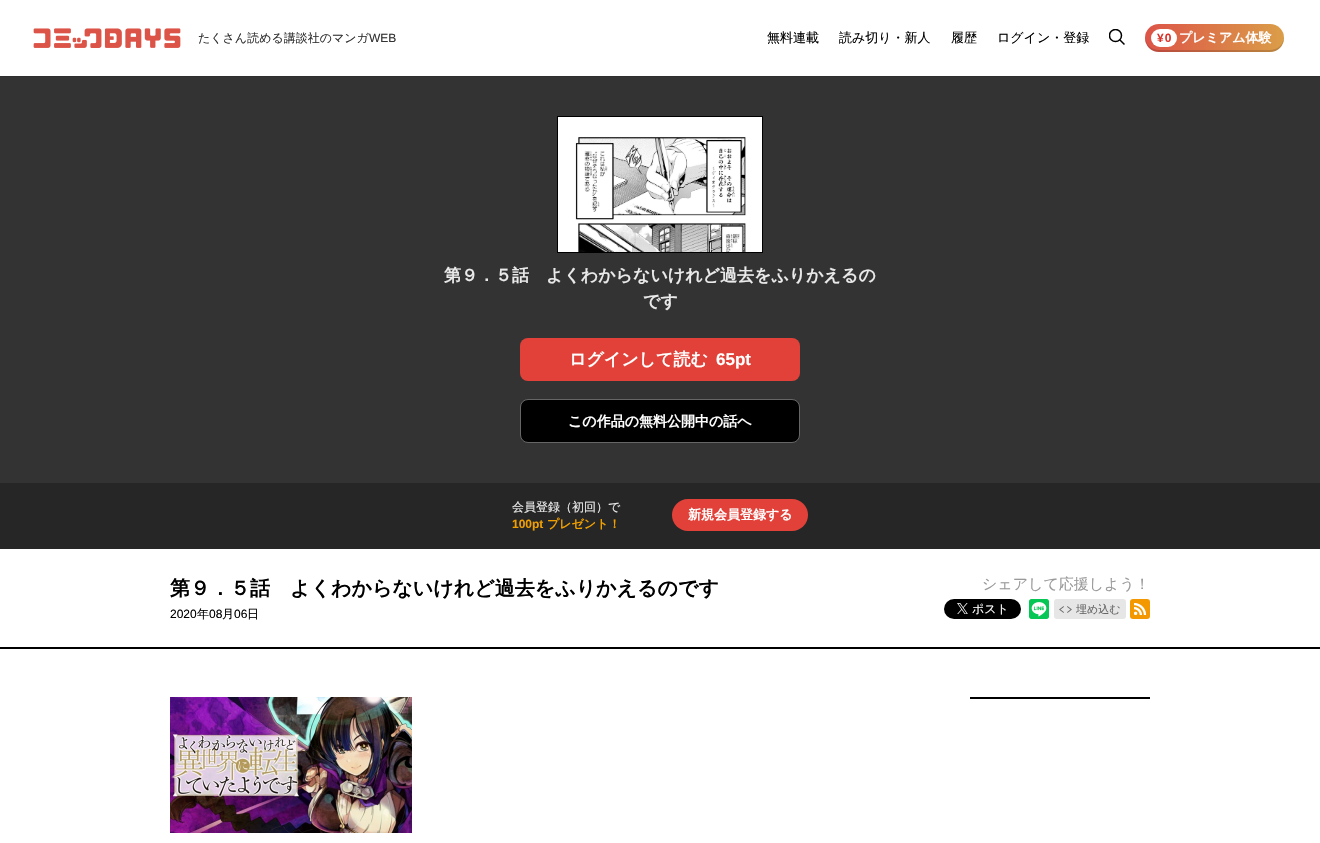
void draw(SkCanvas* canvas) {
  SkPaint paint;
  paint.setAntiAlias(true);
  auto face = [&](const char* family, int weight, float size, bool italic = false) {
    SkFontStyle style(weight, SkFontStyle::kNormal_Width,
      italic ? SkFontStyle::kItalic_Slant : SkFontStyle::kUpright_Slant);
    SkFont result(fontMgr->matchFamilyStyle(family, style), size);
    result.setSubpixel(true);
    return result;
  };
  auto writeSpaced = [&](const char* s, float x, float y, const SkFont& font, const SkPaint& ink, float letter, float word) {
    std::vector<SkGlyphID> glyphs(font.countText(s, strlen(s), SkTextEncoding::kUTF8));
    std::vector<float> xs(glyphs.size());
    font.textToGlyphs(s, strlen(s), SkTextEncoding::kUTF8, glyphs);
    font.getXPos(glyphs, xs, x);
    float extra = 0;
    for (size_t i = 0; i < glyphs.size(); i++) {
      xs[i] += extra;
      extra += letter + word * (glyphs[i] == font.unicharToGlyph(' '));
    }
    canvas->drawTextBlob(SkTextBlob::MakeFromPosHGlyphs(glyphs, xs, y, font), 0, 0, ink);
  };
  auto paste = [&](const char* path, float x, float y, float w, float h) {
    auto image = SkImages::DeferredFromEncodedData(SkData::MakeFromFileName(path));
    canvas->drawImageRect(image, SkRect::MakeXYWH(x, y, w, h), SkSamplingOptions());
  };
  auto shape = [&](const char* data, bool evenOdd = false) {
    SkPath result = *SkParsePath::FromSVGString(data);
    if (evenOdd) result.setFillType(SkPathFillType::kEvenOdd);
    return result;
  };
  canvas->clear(0xffffffff);
  paint.setColor(0xff2e2e2e);
  canvas->drawRect(SkRect::MakeXYWH(0, 76, 1320, 1), paint);
  paste("img/1.png", 33, 28, 148, 20);
  canvas->save();
  canvas->clipRect(SkRect::MakeXYWH(1109, 29, 16, 16));
  paint.setStroke(true);
  paint.setStrokeWidth(1.5f);
  paint.setColor(0xff000000);
  canvas->drawCircle(1115.5f, 35.5f, 6, paint);
  canvas->restore();
  canvas->drawPath(shape("M1119.5 39.5L1124.5 44.5"), paint);
  paint.setStroke(false);
  {
    const SkColor colors[] = {0xffdc5448, 0xffdb9e48};
    const float stops[] = {0, 1};
    const SkPoint ends[] = {{1145, 38}, {1284, 38}};
    paint.setShader(SkGradientShader::MakeLinear(ends, colors, stops, 2, SkTileMode::kClamp));
    paint.setAlpha(255);
  }
  canvas->drawRoundRect(SkRect::MakeXYWH(1145, 24, 139, 28), 14, 14, paint);
  paint.setShader(nullptr);
  paint.setColor(0x26000000);
  canvas->drawPath(shape("M1145 37V38C1145 46 1151 52 1159 52H1270C1278 52 1284 46 1284 38V37C1283 45 1278 50 1270 50H1159C1151 50 1146 45 1145 37Z"), paint);
  paint.setColor(0xffffffff);
  canvas->drawRoundRect(SkRect::MakeXYWH(1151, 29, 26, 18), 9, 9, paint);
  paint.setColor(0xff333333);
  canvas->drawRect(SkRect::MakeXYWH(0, 77, 1320, 406), paint);
  paint.setStroke(true);
  paint.setStrokeWidth(1);
  paint.setColor(0xff000000);
  canvas->drawRect(SkRect::MakeXYWH(557.5f, 116.5f, 205, 136), paint);
  paste("img/2.png", 558, 117, 204, 135);
  paint.setStroke(false);
  paint.setColor(0xffe14138);
  canvas->drawRoundRect(SkRect::MakeXYWH(520, 338, 280, 43), 8, 8, paint);
  paint.setColor(0xff000000);
  canvas->drawRoundRect(SkRect::MakeXYWH(520.5f, 399.5f, 279, 43), 7.5f, 7.5f, paint);
  paint.setStroke(true);
  paint.setColor(0xff666666);
  canvas->drawRoundRect(SkRect::MakeXYWH(520.5f, 399.5f, 279, 43), 7.5f, 7.5f, paint);
  paint.setStroke(false);
  paint.setColor(0xff262626);
  canvas->drawRect(SkRect::MakeXYWH(0, 483, 1320, 66), paint);
  paint.setColor(0xffe14138);
  canvas->drawRoundRect(SkRect::MakeXYWH(672, 499, 136, 32), 16, 16, paint);
  paint.setColor(0xff000000);
  canvas->drawRect(SkRect::MakeXYWH(0, 647, 1320, 2), paint);
  canvas->drawRoundRect(SkRect::MakeXYWH(944, 599, 77, 20), 10, 10, paint);
  paste("img/3.png", 957, 603, 11, 11);
  paste("img/4.png", 1029, 599, 20, 20);
  paint.setColor(0xffe6e6e6);
  canvas->drawRoundRect(SkRect::MakeXYWH(1054, 599, 72, 20), 3, 3, paint);
  paste("img/5.png", 1059, 606, 13, 7);
  paint.setColor(0xfff39801);
  canvas->drawRoundRect(SkRect::MakeXYWH(1130, 599, 20, 20), 3, 3, paint);
  paste("img/6.png", 1134, 603, 12, 12);
  paste("img/7.png", 170, 697, 242, 136);
  paint.setColor(0xff000000);
  canvas->drawRect(SkRect::MakeXYWH(970, 697, 180, 2), paint);
  auto f0 = face("WenQuanYi Zen Hei", 500, 12);
  paint.setColor(0xff333333);
  canvas->drawString("たくさん読める講談社のマンガ", 198, 42, f0, paint);
  auto f1 = face("Liberation Sans", 400, 12);
  canvas->drawString("WEB", 369, 42, f1, paint);
  auto f2 = face("WenQuanYi Zen Hei", 500, 13);
  paint.setColor(0xff000000);
  {
    const struct { const char* s; float x, y; } items[] = {
      {"無料連載", 767, 42},
      {"読み切り・新人", 839, 42},
      {"履歴", 951, 42},
      {"ログイン・登録", 997, 42},
    };
    for (auto [s, x, y] : items) {
      canvas->drawString(s, x, y, f2, paint);
    }
  }
  auto f3 = face("Liberation Sans", 700, 12);
  paint.setColor(0xffdb332a);
  writeSpaced("¥0", 1157, 42, f3, paint, 1, 0);
  auto f4 = face("WenQuanYi Zen Hei", 700, 13);
  paint.setColor(0xffffffff);
  canvas->drawString("プレミアム体験", 1179, 42, f4, paint);
  auto f5 = face("WenQuanYi Zen Hei", 700, 17);
  paint.setColor(0xffeaeaea);
  canvas->drawString("第９．５話　よくわからないけれど過去をふりかえるの", 444, 281, f5, paint);
  canvas->drawString("です", 643, 307, f5, paint);
  paint.setColor(0xffffffff);
  canvas->drawString("ログインして読む", 569, 365, f5, paint);
  auto f6 = face("Liberation Sans", 700, 17);
  canvas->drawString("65pt", 716, 365, f6, paint);
  auto f7 = face("WenQuanYi Zen Hei", 700, 14);
  canvas->drawString("この作品の無料公開中の話へ", 568, 426, f7, paint);
  paint.setColor(0xffeaeaea);
  canvas->drawString("会員登録（初回）で", 512, 511, f0, paint);
  paint.setColor(0xfff19f00);
  canvas->drawString("100pt", 512, 528, f3, paint);
  auto f8 = face("WenQuanYi Zen Hei", 700, 12);
  canvas->drawString("プレゼント！", 547, 528, f8, paint);
  paint.setColor(0xffffffff);
  canvas->drawString("新規会員登録する", 688, 519, f4, paint);
  auto f9 = face("WenQuanYi Zen Hei", 700, 20);
  paint.setColor(0xff000000);
  canvas->drawString("第９．５話　よくわからないけれど過去をふりかえるのです", 170, 595, f9, paint);
  canvas->drawString("2020", 170, 618, f1, paint);
  canvas->drawString("年", 197, 618, f0, paint);
  canvas->drawString("08", 209, 618, f1, paint);
  canvas->drawString("月", 222, 618, f0, paint);
  canvas->drawString("06", 234, 618, f1, paint);
  canvas->drawString("日", 247, 618, f0, paint);
  auto f10 = face("WenQuanYi Zen Hei", 500, 15);
  paint.setColor(0xff999999);
  canvas->drawString("シェアして応援しよう！", 982, 589, f10, paint);
  paint.setColor(0xffffffff);
  canvas->drawString("ポスト", 972, 613, f0, paint);
  auto f11 = face("WenQuanYi Zen Hei", 500, 11);
  paint.setColor(0xff666666);
  canvas->drawString("埋め込む", 1076, 613, f11, paint);
}
